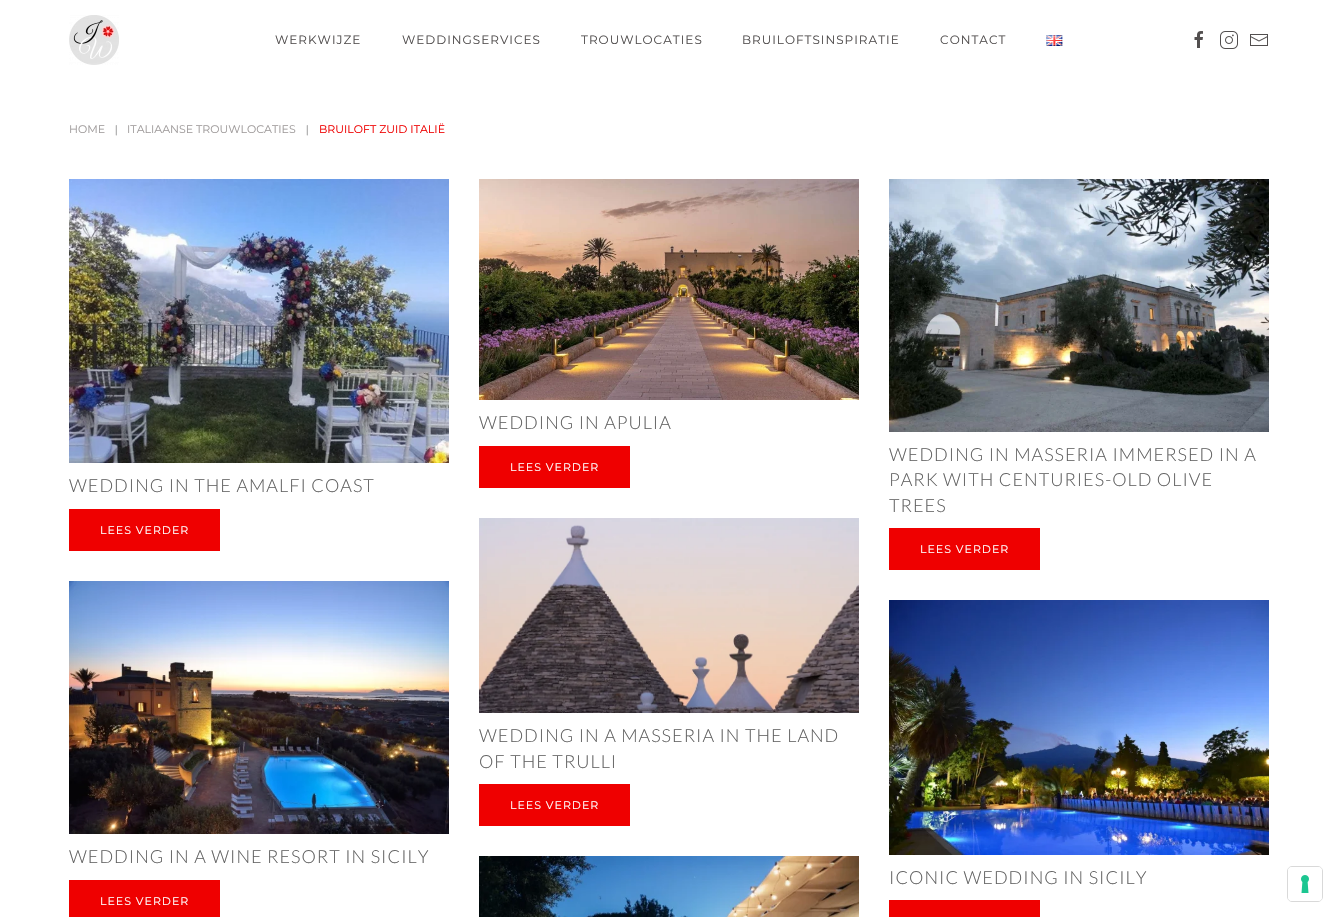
void draw(SkCanvas* canvas) {
  SkPaint paint;
  paint.setAntiAlias(true);
  auto face = [&](const char* family, int weight, float size, bool italic = false) {
    SkFontStyle style(weight, SkFontStyle::kNormal_Width,
      italic ? SkFontStyle::kItalic_Slant : SkFontStyle::kUpright_Slant);
    SkFont result(fontMgr->matchFamilyStyle(family, style), size);
    result.setSubpixel(true);
    return result;
  };
  auto writeSpaced = [&](const char* s, float x, float y, const SkFont& font, const SkPaint& ink, float letter, float word) {
    std::vector<SkGlyphID> glyphs(font.countText(s, strlen(s), SkTextEncoding::kUTF8));
    std::vector<float> xs(glyphs.size());
    font.textToGlyphs(s, strlen(s), SkTextEncoding::kUTF8, glyphs);
    font.getXPos(glyphs, xs, x);
    float extra = 0;
    for (size_t i = 0; i < glyphs.size(); i++) {
      xs[i] += extra;
      extra += letter + word * (glyphs[i] == font.unicharToGlyph(' '));
    }
    canvas->drawTextBlob(SkTextBlob::MakeFromPosHGlyphs(glyphs, xs, y, font), 0, 0, ink);
  };
  auto paste = [&](const char* path, float x, float y, float w, float h) {
    auto image = SkImages::DeferredFromEncodedData(SkData::MakeFromFileName(path));
    canvas->drawImageRect(image, SkRect::MakeXYWH(x, y, w, h), SkSamplingOptions());
  };
  canvas->clear(0xffffffff);
  paste("img/1.png", 69, 15, 50, 50);
  paste("img/2.png", 1046, 35, 17, 11);
  paste("img/3.png", 1194, 31, 9, 17);
  paste("img/4.png", 1220, 31, 18, 18);
  paste("img/5.png", 1250, 34, 18, 12);
  paste("img/6.png", 69, 179, 380, 284);
  paint.setColor(0xffef0000);
  canvas->drawRect(SkRect::MakeXYWH(69, 509, 151, 42), paint);
  paste("img/7.png", 479, 179, 380, 221);
  canvas->drawRect(SkRect::MakeXYWH(479, 446, 151, 42), paint);
  paste("img/8.png", 889, 179, 380, 253);
  canvas->drawRect(SkRect::MakeXYWH(889, 528, 151, 42), paint);
  paste("img/9.png", 479, 518, 380, 195);
  canvas->drawRect(SkRect::MakeXYWH(479, 784, 151, 42), paint);
  paste("img/10.png", 69, 581, 380, 253);
  canvas->drawRect(SkRect::MakeXYWH(69, 880, 151, 37), paint);
  paste("img/11.png", 479, 856, 380, 61);
  paste("img/12.png", 889, 600, 380, 255);
  canvas->drawRect(SkRect::MakeXYWH(889, 900, 151, 17), paint);
  paint.setStroke(true);
  paint.setStrokeWidth(1);
  paint.setColor(0xffd9d9d9);
  canvas->drawRoundRect(SkRect::MakeXYWH(1287.5f, 866.5f, 35, 35), 4.5f, 4.5f, paint);
  paint.setStroke(false);
  paint.setColor(0xffffffff);
  canvas->drawRoundRect(SkRect::MakeXYWH(1288, 867, 34, 34), 4, 4, paint);
  paste("img/13.png", 1301, 875, 8, 18);
  auto f0 = face("Montserrat", 100, 12);
  paint.setColor(0xff524f4f);
  {
    const struct { const char* s; float x, y; } items[] = {
      {"WERKWIJZE", 275, 44},
      {"WEDDINGSERVICES", 402, 44},
      {"TROUWLOCATIES", 581, 44},
      {"BRUILOFTSINSPIRATIE", 742, 44},
      {"CONTACT", 940, 44},
    };
    for (auto [s, x, y] : items) {
      writeSpaced(s, x, y, f0, paint, 1, 0);
    }
  }
  auto f1 = face("Montserrat", 100, 11);
  paint.setColor(0xff9f9b9b);
  canvas->drawString("HOME", 69, 133, f1, paint);
  auto f2 = face("Mandali", 400, 11);
  paint.setColor(0xff919191);
  canvas->drawString("|", 115, 133, f2, paint);
  paint.setColor(0xff9f9b9b);
  canvas->drawString("ITALIAANSE TROUWLOCATIES", 127, 133, f1, paint);
  paint.setColor(0xff919191);
  canvas->drawString("|", 306, 133, f2, paint);
  paint.setColor(0xffef0000);
  canvas->drawString("BRUILOFT ZUID ITALIË", 319, 133, f1, paint);
  auto f3 = face("Lato", 300, 18);
  paint.setColor(0xff626262);
  writeSpaced("WEDDING IN THE AMALFI COAST", 69, 492, f3, paint, 1, 0);
  paint.setColor(0xffffffff);
  writeSpaced("LEES VERDER", 100, 534, f1, paint, 1, 0);
  paint.setColor(0xff626262);
  writeSpaced("WEDDING IN APULIA", 479, 429, f3, paint, 1, 0);
  paint.setColor(0xffffffff);
  writeSpaced("LEES VERDER", 510, 471, f1, paint, 1, 0);
  paint.setColor(0xff626262);
  {
    const struct { const char* s; float x, y; } items[] = {
      {"WEDDING IN MASSERIA IMMERSED IN A", 889, 461},
      {"PARK WITH CENTURIES-OLD OLIVE", 889, 486},
      {"TREES", 889, 512},
    };
    for (auto [s, x, y] : items) {
      writeSpaced(s, x, y, f3, paint, 1, 0);
    }
  }
  paint.setColor(0xffffffff);
  writeSpaced("LEES VERDER", 920, 553, f1, paint, 1, 0);
  paint.setColor(0xff626262);
  writeSpaced("WEDDING IN A MASSERIA IN THE LAND", 479, 742, f3, paint, 1, 0);
  writeSpaced("OF THE TRULLI", 479, 768, f3, paint, 1, 0);
  paint.setColor(0xffffffff);
  writeSpaced("LEES VERDER", 510, 809, f1, paint, 1, 0);
  paint.setColor(0xff626262);
  writeSpaced("WEDDING IN A WINE RESORT IN SICILY", 69, 863, f3, paint, 1, 0);
  paint.setColor(0xffffffff);
  writeSpaced("LEES VERDER", 100, 905, f1, paint, 1, 0);
  paint.setColor(0xff626262);
  writeSpaced("ICONIC WEDDING IN SICILY", 889, 884, f3, paint, 1, 0);
}
